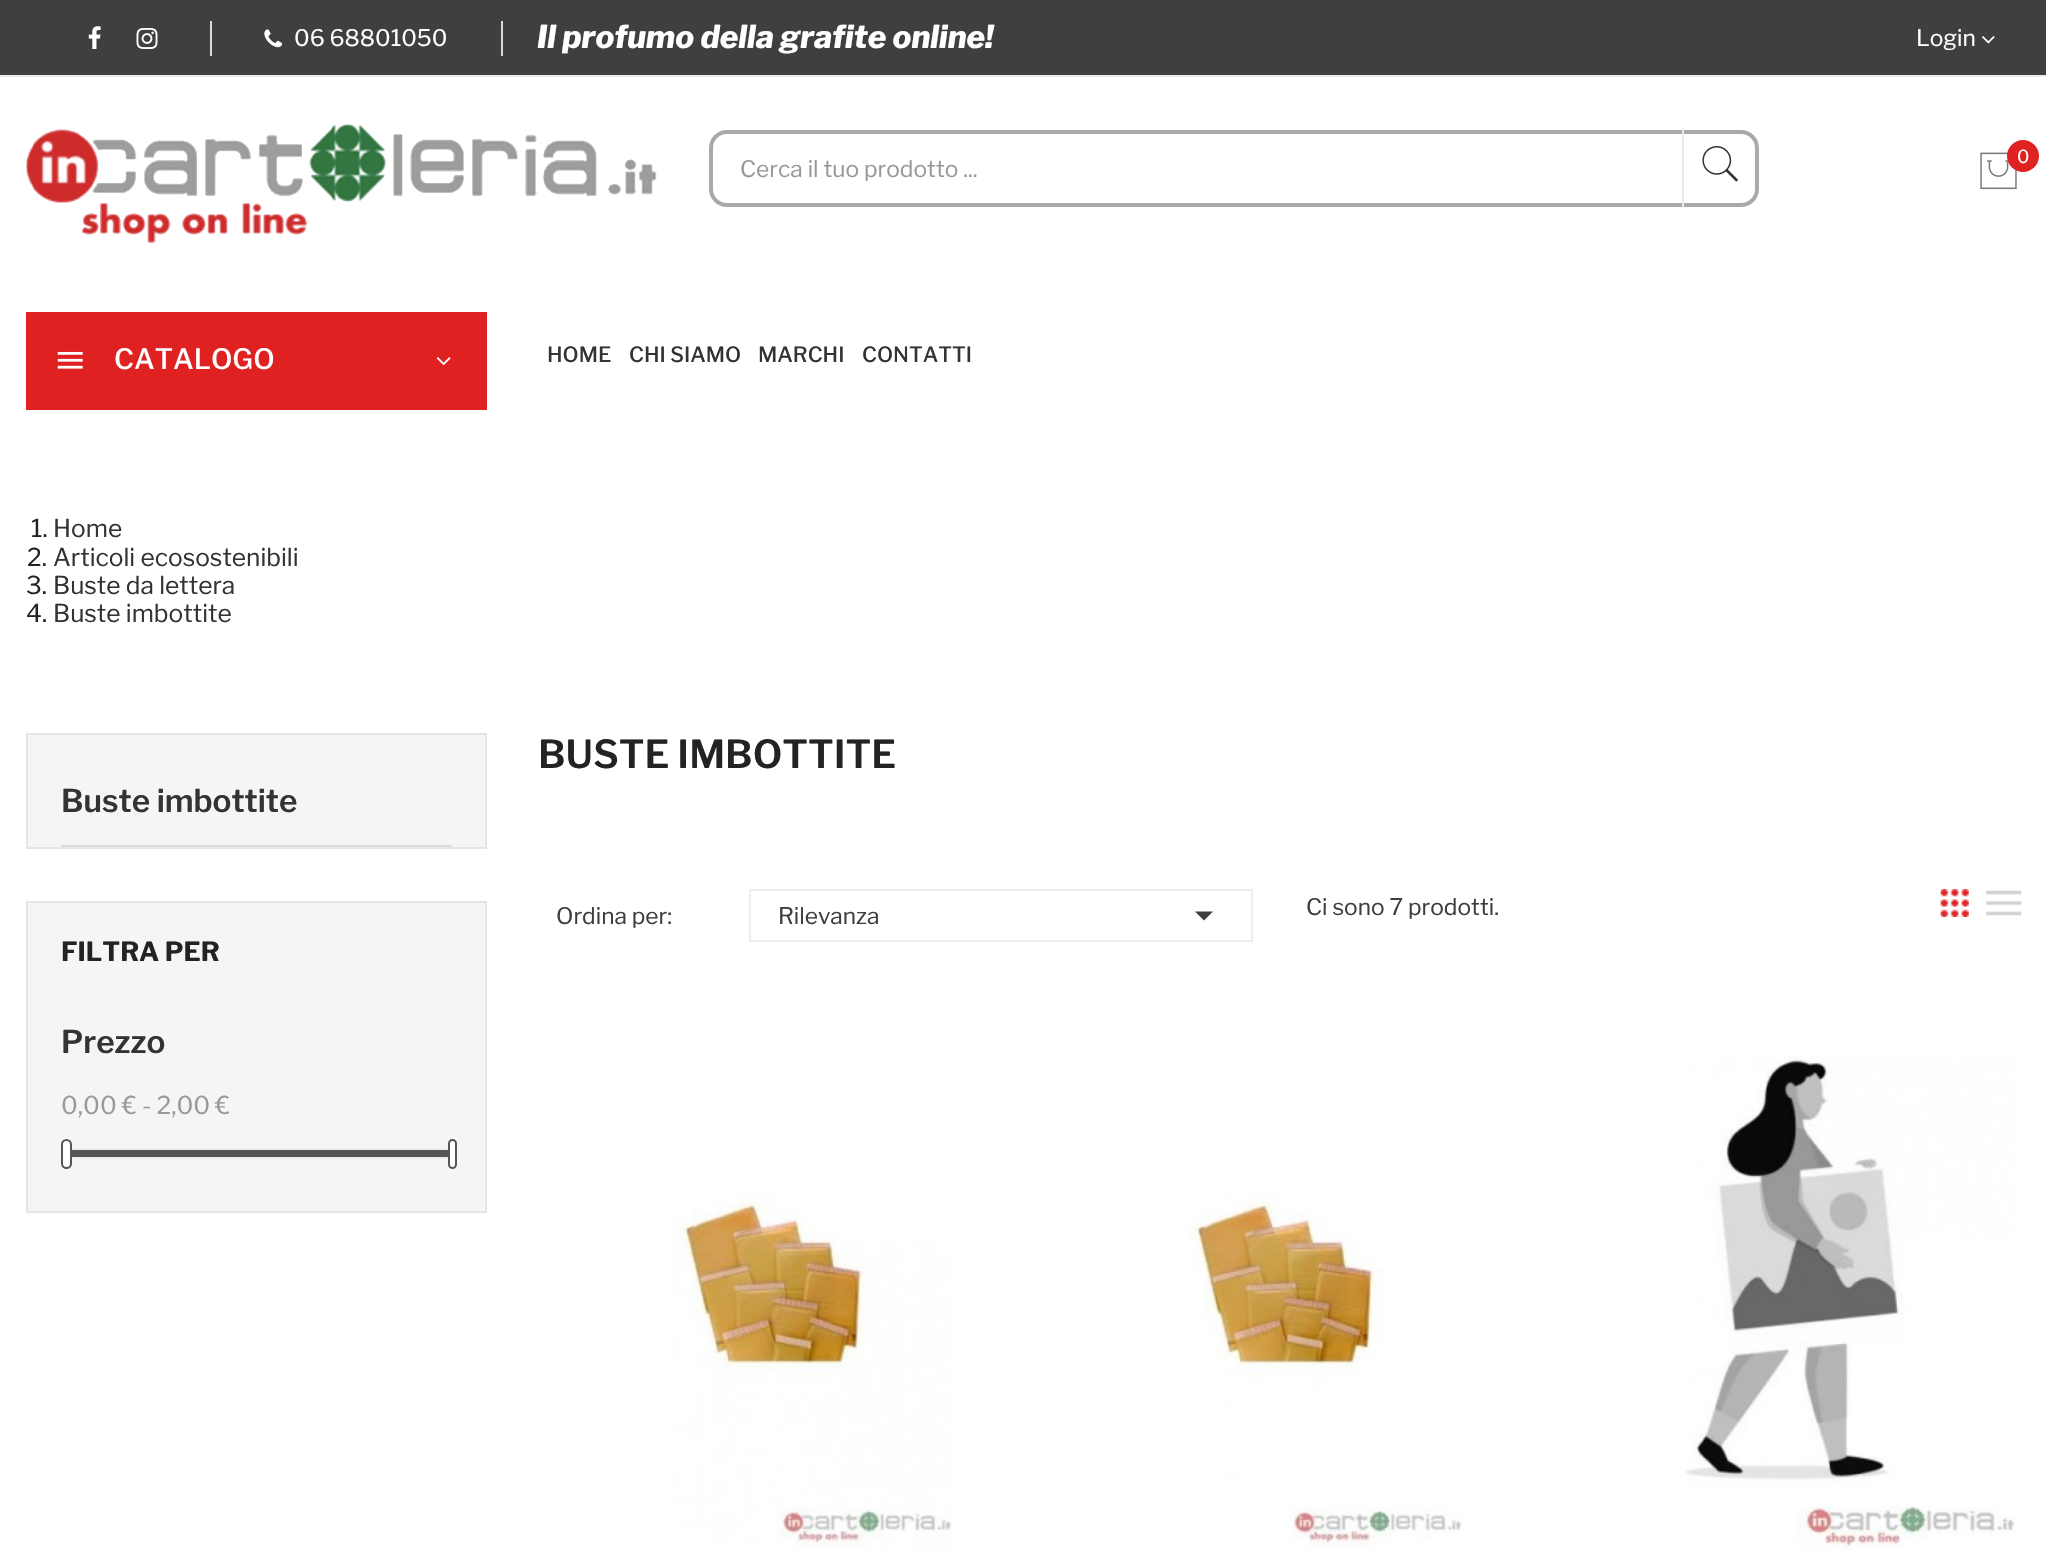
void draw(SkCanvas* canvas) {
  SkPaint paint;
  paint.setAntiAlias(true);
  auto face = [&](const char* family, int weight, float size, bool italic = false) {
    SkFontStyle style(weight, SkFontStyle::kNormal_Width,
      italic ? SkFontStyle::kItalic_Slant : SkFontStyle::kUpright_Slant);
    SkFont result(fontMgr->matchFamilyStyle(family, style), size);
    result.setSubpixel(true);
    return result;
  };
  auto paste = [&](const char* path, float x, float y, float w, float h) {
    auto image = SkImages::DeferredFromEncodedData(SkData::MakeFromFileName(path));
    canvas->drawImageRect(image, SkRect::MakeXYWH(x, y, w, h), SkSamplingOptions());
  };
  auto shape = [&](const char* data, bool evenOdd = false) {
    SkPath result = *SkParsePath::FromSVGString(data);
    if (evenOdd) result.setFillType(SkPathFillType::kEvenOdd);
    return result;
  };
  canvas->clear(0xffffffff);
  {
    const struct { float x, y, w, h; SkColor color; } items[] = {
      {0, 0, 2046, 75, 0xff3f3e40},
      {0, 75, 2046, 2, 0xffebebeb},
      {210, 21, 2, 35, 0xffdbdbdb},
    };
    for (auto [x, y, w, h, color] : items) {
      paint.setColor(color);
      canvas->drawRect(SkRect::MakeXYWH(x, y, w, h), paint);
    }
  }
  paste("img/1.png", 88, 26, 13, 23);
  paste("img/2.png", 136, 28, 22, 21);
  canvas->drawRect(SkRect::MakeXYWH(501, 21, 2, 35), paint);
  paste("img/3.png", 264, 29, 19, 19);
  paste("img/4.png", 1982, 36, 13, 8);
  paste("img/5.png", 26, 124, 631, 120);
  paste("img/6.png", 1980, 152, 37, 38);
  paint.setColor(0xffdf2121);
  canvas->drawCircle(2023, 156, 16, paint);
  paint.setStroke(true);
  paint.setStrokeWidth(4);
  paint.setColor(0xffa9a9a9);
  canvas->drawRoundRect(SkRect::MakeXYWH(711, 132, 1046, 73), 16, 16, paint);
  paint.setStroke(false);
  paint.setColor(0xffebebeb);
  canvas->drawRect(SkRect::MakeXYWH(1682, 128, 2, 80), paint);
  paste("img/7.png", 1702, 146, 36, 36);
  paint.setColor(0xffdf2121);
  canvas->drawRect(SkRect::MakeXYWH(26, 312, 461, 98), paint);
  paste("img/8.png", 57, 351, 26, 18);
  paste("img/9.png", 436, 357, 15, 9);
  paint.setColor(0xfff5f5f5);
  canvas->drawRect(SkRect::MakeXYWH(27, 734, 459, 114), paint);
  paint.setStroke(true);
  paint.setStrokeWidth(2);
  paint.setColor(0xffe5e5e5);
  canvas->drawRect(SkRect::MakeXYWH(27, 734, 459, 114), paint);
  paint.setStroke(false);
  paint.setColor(0xffdcdcdc);
  canvas->drawRect(SkRect::MakeXYWH(61, 845, 391, 2), paint);
  paint.setColor(0xfff5f5f5);
  canvas->drawRect(SkRect::MakeXYWH(27, 902, 459, 310), paint);
  paint.setStroke(true);
  paint.setColor(0xffe5e5e5);
  canvas->drawRect(SkRect::MakeXYWH(27, 902, 459, 310), paint);
  paint.setColor(0xffededed);
  canvas->drawRoundRect(SkRect::MakeXYWH(62, 1149, 389, 9), 4.5f, 4.5f, paint);
  paint.setStroke(false);
  paint.setColor(0xff555555);
  canvas->drawRoundRect(SkRect::MakeXYWH(63, 1150, 387, 7), 3.5f, 3.5f, paint);
  paint.setColor(0xffffffff);
  canvas->drawRoundRect(SkRect::MakeXYWH(62, 1140, 9, 28), 4.5f, 4.5f, paint);
  paint.setStroke(true);
  paint.setColor(0xff555555);
  canvas->drawRoundRect(SkRect::MakeXYWH(62, 1140, 9, 28), 4.5f, 4.5f, paint);
  paint.setStroke(false);
  paint.setColor(0xffffffff);
  canvas->drawRoundRect(SkRect::MakeXYWH(449, 1140, 7, 28), 3.5f, 3.5f, paint);
  paint.setStroke(true);
  paint.setColor(0xff555555);
  canvas->drawRoundRect(SkRect::MakeXYWH(449, 1140, 7, 28), 3.5f, 3.5f, paint);
  paint.setColor(0xffededed);
  canvas->drawRect(SkRect::MakeXYWH(750, 890, 502, 51), paint);
  paint.setStroke(false);
  paint.setColor(0xff3e3e3e);
  canvas->drawPath(shape("M1195 911.5H1213L1204 920.5Z"), paint);
  paste("img/10.png", 1940, 889, 29, 28);
  paste("img/11.png", 1986, 890, 36, 26);
  paste("img/12.png", 672, 1192, 281, 357);
  paste("img/13.png", 1188, 1193, 274, 356);
  paste("img/14.png", 1685, 1055, 330, 495);
  auto f0 = face("Libre Franklin", 400, 22.75f);
  paint.setColor(0xffffffff);
  canvas->drawString("06 68801050", 294, 46, f0, paint);
  auto f1 = face("Libre Franklin", 800, 31.5f, true);
  canvas->drawString("Il profumo della grafite online!", 537, 48, f1, paint);
  canvas->drawString("Login", 1916, 46, f0, paint);
  auto f2 = face("Libre Franklin", 400, 18);
  canvas->drawString("0", 2017, 163, f2, paint);
  paint.setColor(0xff999999);
  canvas->drawString("Cerca il tuo prodotto ...", 740, 177, f0, paint);
  auto f3 = face("Libre Franklin", 500, 28);
  paint.setColor(0xffffffff);
  canvas->drawString("CATALOGO", 114, 369, f3, paint);
  auto f4 = face("Libre Franklin", 500, 21);
  paint.setColor(0xff333333);
  {
    const struct { const char* s; float x, y; } items[] = {
      {"HOME", 547, 362},
      {"CHI SIAMO", 629, 362},
      {"MARCHI", 758, 362},
      {"CONTATTI", 862, 362},
    };
    for (auto [s, x, y] : items) {
      canvas->drawString(s, x, y, f4, paint);
    }
  }
  auto f5 = face("Libre Franklin", 400, 24.5f);
  paint.setColor(0xff232323);
  canvas->drawString("1.", 31, 537, f5, paint);
  paint.setColor(0xff333333);
  canvas->drawString("Home", 53, 537, f5, paint);
  paint.setColor(0xff232323);
  canvas->drawString("2.", 27, 566, f5, paint);
  paint.setColor(0xff333333);
  canvas->drawString("Articoli ecosostenibili", 53, 566, f5, paint);
  paint.setColor(0xff232323);
  canvas->drawString("3.", 26, 594, f5, paint);
  paint.setColor(0xff333333);
  canvas->drawString("Buste da lettera", 53, 594, f5, paint);
  paint.setColor(0xff232323);
  canvas->drawString("4.", 26, 622, f5, paint);
  paint.setColor(0xff333333);
  canvas->drawString("Buste imbottite", 53, 622, f5, paint);
  auto f6 = face("Libre Franklin", 600, 31.5f);
  canvas->drawString("Buste imbottite", 61, 812, f6, paint);
  auto f7 = face("Libre Franklin", 700, 26.25f);
  paint.setColor(0xff232323);
  canvas->drawString("FILTRA PER", 61, 961, f7, paint);
  paint.setColor(0xff333333);
  canvas->drawString("Prezzo", 61, 1053, f6, paint);
  paint.setColor(0xff999999);
  canvas->drawString("0,00 € - 2,00 €", 61, 1114, f5, paint);
  auto f8 = face("Libre Franklin", 600, 38.5f);
  paint.setColor(0xff232323);
  canvas->drawString("BUSTE IMBOTTITE", 538, 768, f8, paint);
  paint.setColor(0xff3e3e3e);
  {
    const struct { const char* s; float x, y; } items[] = {
      {"Ordina per:", 556, 924},
      {"Rilevanza", 778, 924},
      {"Ci sono 7 prodotti.", 1306, 915},
    };
    for (auto [s, x, y] : items) {
      canvas->drawString(s, x, y, f0, paint);
    }
  }
}
